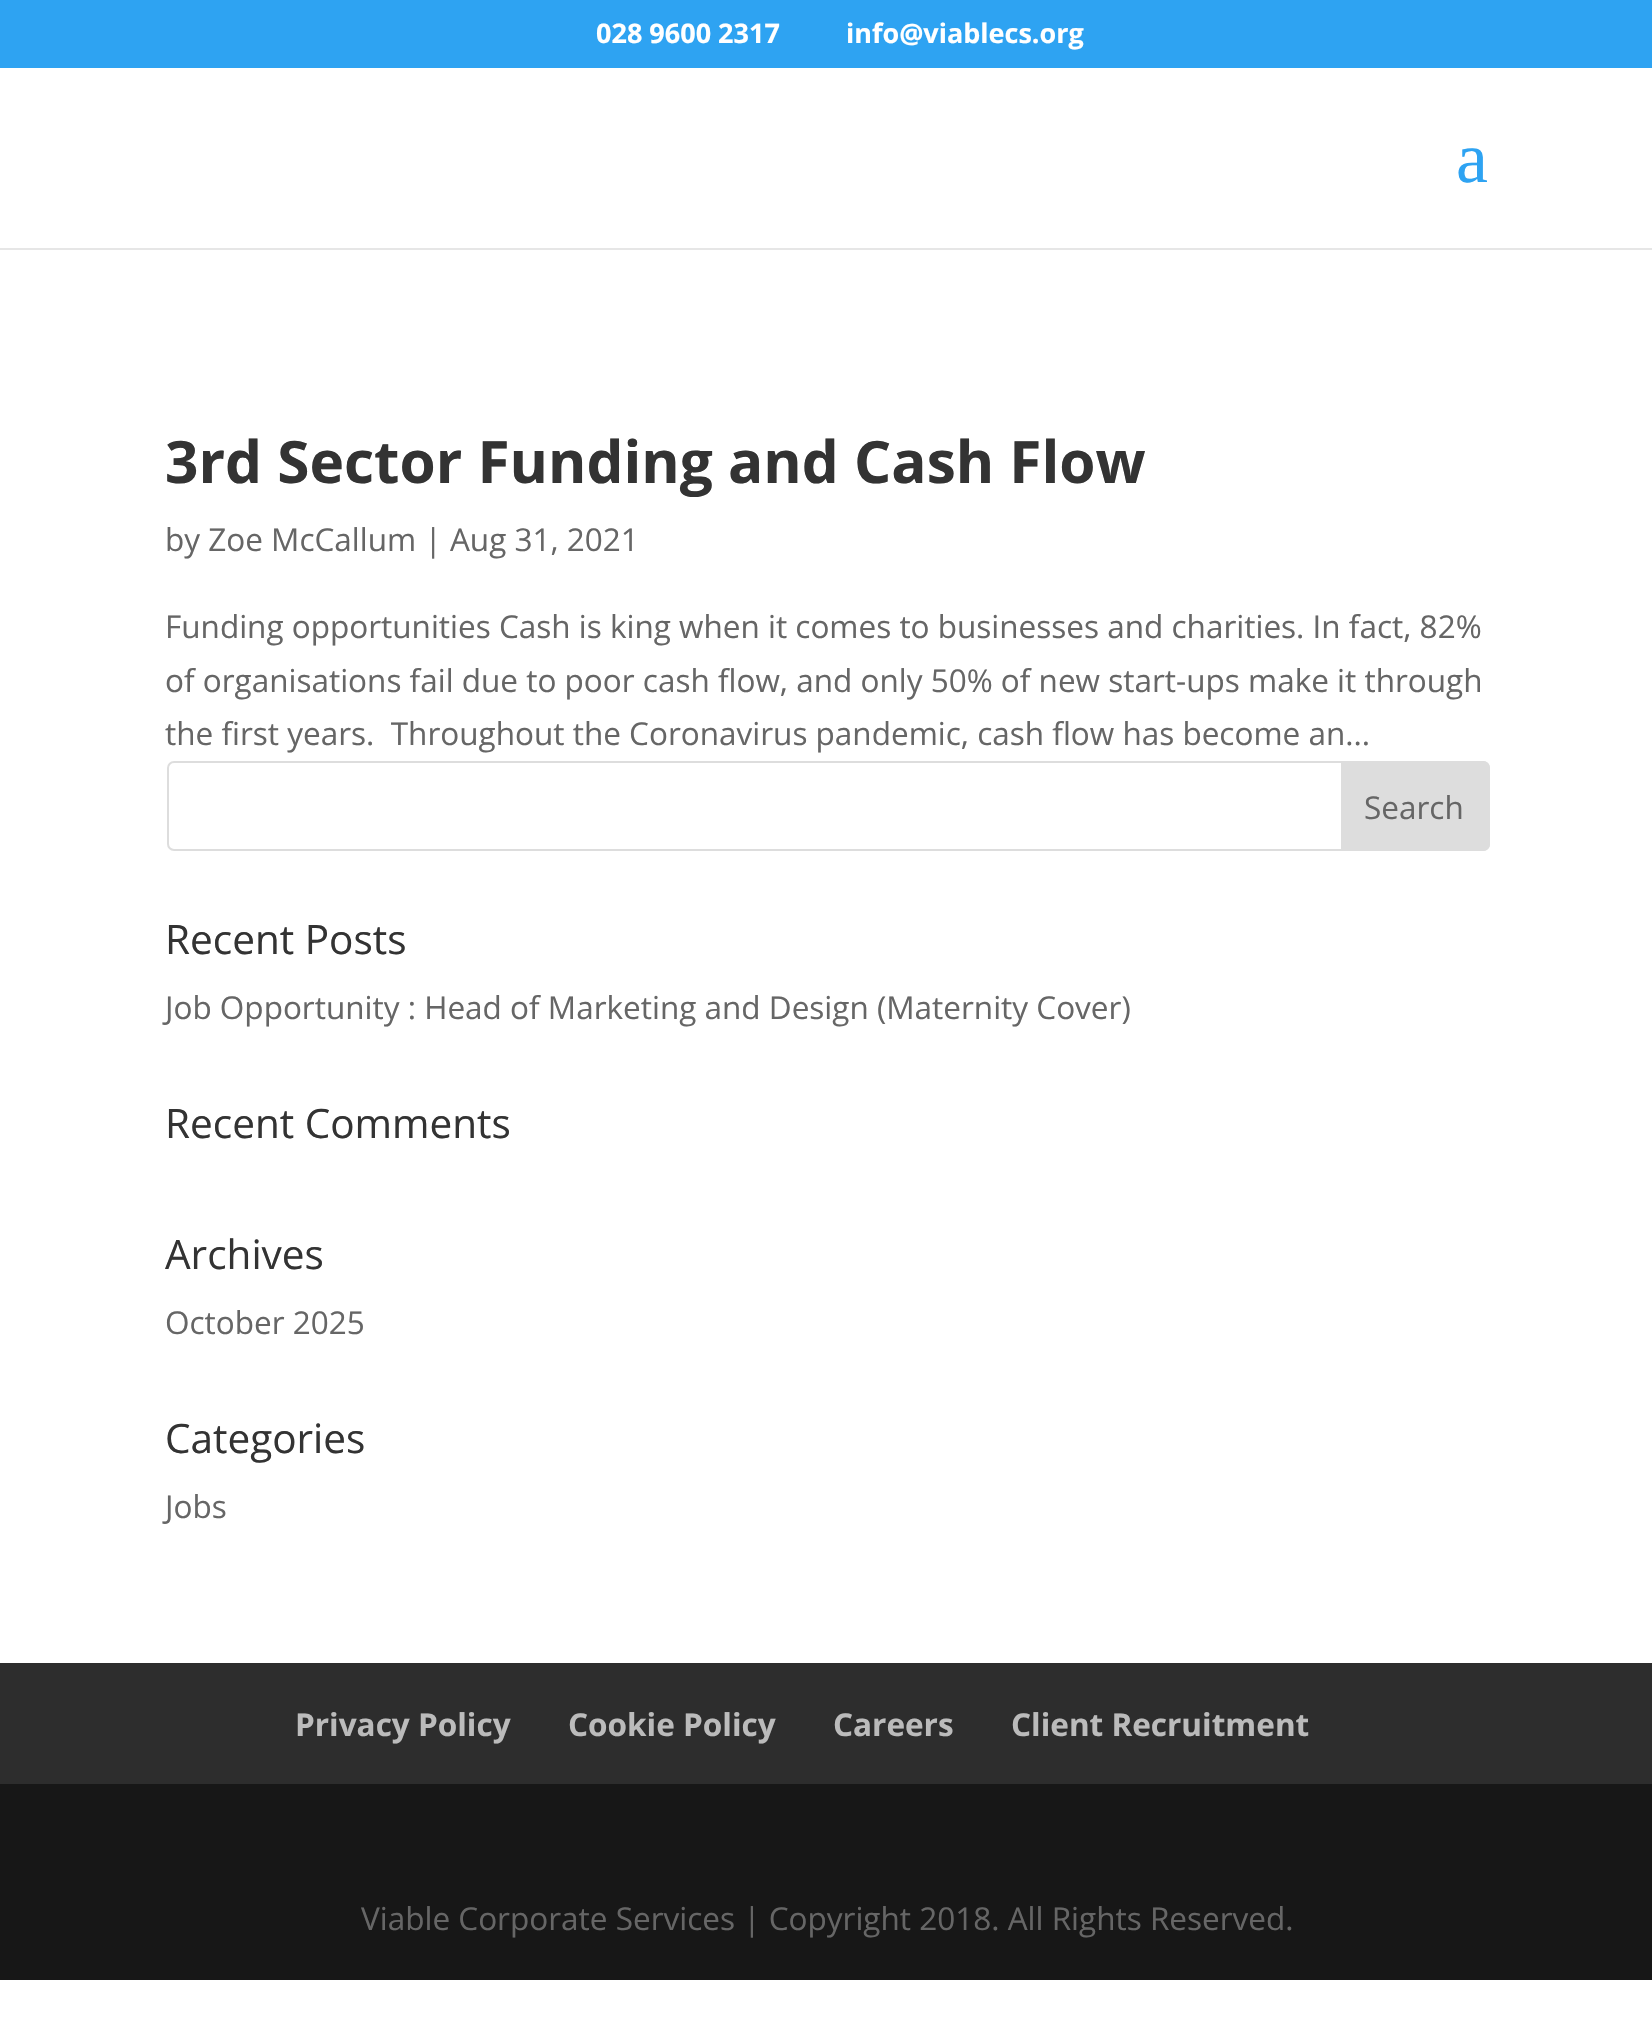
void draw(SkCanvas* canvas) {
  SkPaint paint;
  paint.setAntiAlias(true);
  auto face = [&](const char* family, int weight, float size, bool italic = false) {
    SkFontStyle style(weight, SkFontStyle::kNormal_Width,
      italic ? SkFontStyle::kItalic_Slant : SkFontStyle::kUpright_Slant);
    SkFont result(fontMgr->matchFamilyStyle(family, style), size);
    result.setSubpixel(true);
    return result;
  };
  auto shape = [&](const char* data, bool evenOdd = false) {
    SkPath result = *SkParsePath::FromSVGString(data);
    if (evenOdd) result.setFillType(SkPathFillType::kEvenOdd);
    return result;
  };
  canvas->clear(0xffffffff);
  paint.setColor(0xff2ea3f2);
  canvas->drawRect(SkRect::MakeXYWH(0, 0, 1652, 68), paint);
  paint.setColor(0xffe6e6e6);
  canvas->drawPath(shape("M0 248V250H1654V70V248Z"), paint);
  paint.setStroke(true);
  paint.setStrokeWidth(2);
  paint.setColor(0xffdddddd);
  canvas->drawRoundRect(SkRect::MakeXYWH(168, 762, 1321, 88), 6, 6, paint);
  paint.setStroke(false);
  canvas->drawPath(shape("M1342 762H1483C1486.5 762 1489 764.5 1489 768V844C1489 847.5 1486.5 850 1483 850H1342Z"), paint);
  paint.setStroke(true);
  canvas->drawPath(shape("M1342 762H1483C1486.5 762 1489 764.5 1489 768V844C1489 847.5 1486.5 850 1483 850H1342Z"), paint);
  paint.setStroke(false);
  paint.setColor(0xff2d2d2d);
  canvas->drawRect(SkRect::MakeXYWH(0, 1663, 1652, 121), paint);
  paint.setColor(0xff171717);
  canvas->drawRect(SkRect::MakeXYWH(0, 1784, 1652, 196), paint);
  auto f0 = face("Open Sans", 700, 27);
  paint.setColor(0xffffffff);
  canvas->drawString("028 9600 2317", 596, 43, f0, paint);
  canvas->drawString("info@viablecs.org", 846, 43, f0, paint);
  auto f1 = face("Liberation Serif", 400, 72);
  paint.setColor(0xff2ea3f2);
  canvas->drawString("a", 1456, 182, f1, paint);
  auto f2 = face("Open Sans", 700, 58.5f);
  paint.setColor(0xff333333);
  canvas->drawString("3rd Sector Funding and Cash Flow", 165, 483, f2, paint);
  auto f3 = face("Open Sans", 400, 31.5f);
  paint.setColor(0xff666666);
  {
    const struct { const char* s; float x, y; } items[] = {
      {"by Zoe McCallum | Aug 31, 2021", 165, 551},
      {"Funding opportunities Cash is king when it comes to businesses and charities. In fact, 82%", 165, 638},
      {"of organisations fail due to poor cash flow, and only 50% of new start-ups make it through", 165, 692},
      {"the first years.  Throughout the Coronavirus pandemic, cash flow has become an...", 165, 745},
      {"Search", 1364, 819},
    };
    for (auto [s, x, y] : items) {
      canvas->drawString(s, x, y, f3, paint);
    }
  }
  auto f4 = face("Open Sans", 400, 40.5f);
  paint.setColor(0xff333333);
  canvas->drawString("Recent Posts", 165, 954, f4, paint);
  paint.setColor(0xff666666);
  canvas->drawString("Job Opportunity : Head of Marketing and Design (Maternity Cover)", 165, 1019, f3, paint);
  paint.setColor(0xff333333);
  canvas->drawString("Recent Comments", 165, 1138, f4, paint);
  canvas->drawString("Archives", 165, 1269, f4, paint);
  paint.setColor(0xff666666);
  canvas->drawString("October 2025", 165, 1334, f3, paint);
  paint.setColor(0xff333333);
  canvas->drawString("Categories", 165, 1453, f4, paint);
  paint.setColor(0xff666666);
  canvas->drawString("Jobs", 165, 1518, f3, paint);
  auto f5 = face("Open Sans", 700, 31.5f);
  paint.setColor(0xffbbbbbb);
  {
    const struct { const char* s; float x, y; } items[] = {
      {"Privacy Policy", 295, 1736},
      {"Cookie Policy", 568, 1736},
      {"Careers", 833, 1736},
      {"Client Recruitment", 1011, 1736},
    };
    for (auto [s, x, y] : items) {
      canvas->drawString(s, x, y, f5, paint);
    }
  }
  paint.setColor(0xff666666);
  canvas->drawString("Viable Corporate Services | Copyright 2018. All Rights Reserved.", 361, 1930, f3, paint);
}
